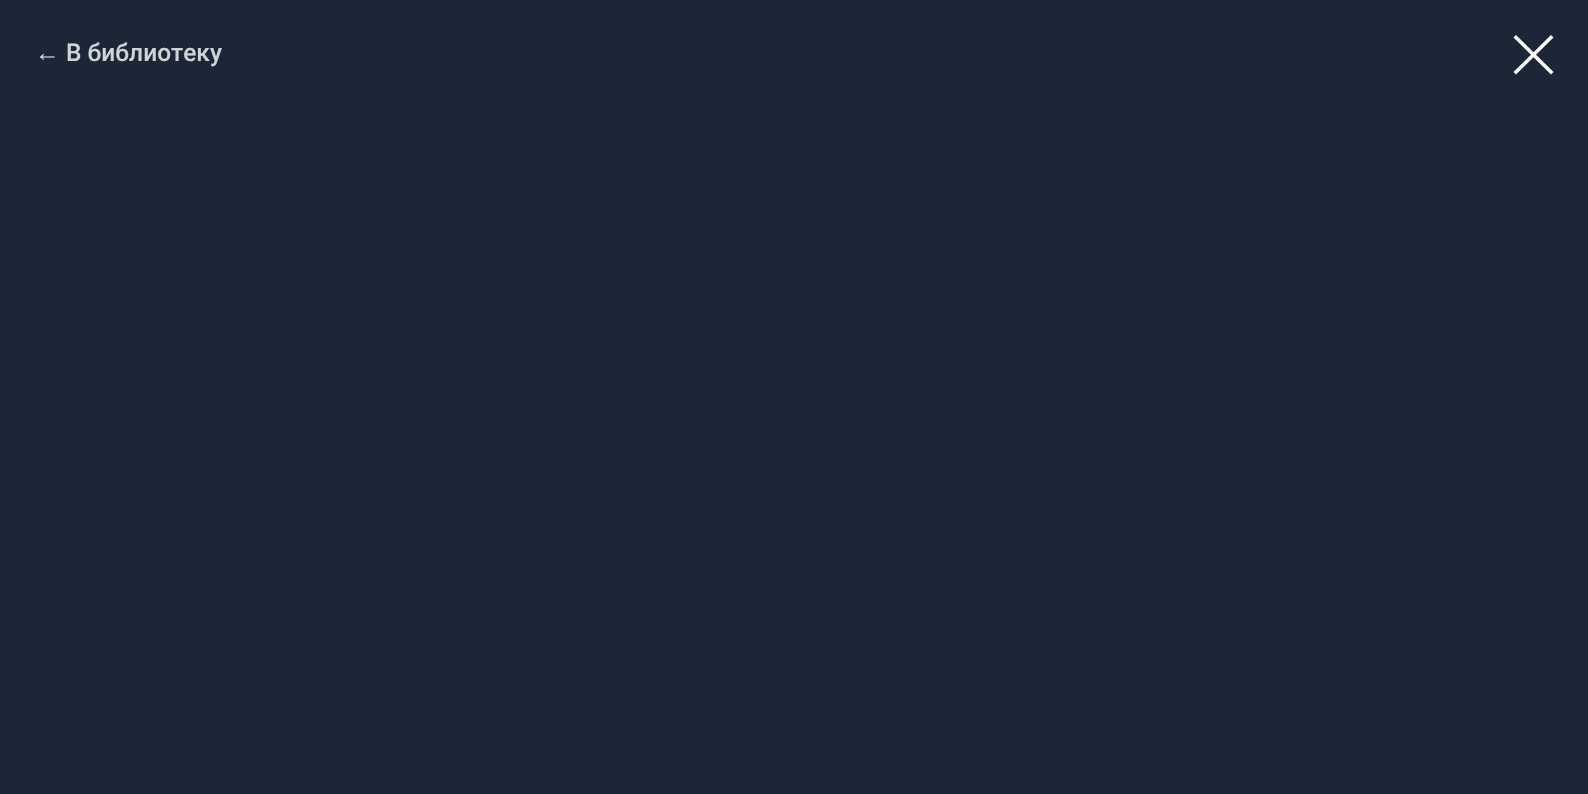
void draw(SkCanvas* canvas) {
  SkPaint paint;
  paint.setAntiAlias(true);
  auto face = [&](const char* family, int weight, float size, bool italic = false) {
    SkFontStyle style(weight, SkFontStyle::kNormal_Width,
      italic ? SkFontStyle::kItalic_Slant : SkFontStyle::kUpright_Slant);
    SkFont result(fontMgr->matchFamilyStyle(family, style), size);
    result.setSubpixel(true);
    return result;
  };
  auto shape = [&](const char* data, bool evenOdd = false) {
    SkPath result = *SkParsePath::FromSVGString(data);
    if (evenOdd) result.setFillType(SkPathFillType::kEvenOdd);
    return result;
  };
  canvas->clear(0xff1b2636);
  paint.setColor(0xffffffff);
  canvas->drawPath(shape("M1513.5 37.5L1516 35L1553.5 72L1551 74.5Z", true), paint);
  canvas->drawPath(shape("M1551 35L1553.5 37.5L1516 74.5L1513.5 72Z", true), paint);
  auto f0 = face("Liberation Sans", 400, 24.5f);
  paint.setColor(0xffd1d4d7);
  canvas->drawString("←", 35, 61, f0, paint);
  auto f1 = face("Roboto", 500, 24.5f);
  canvas->drawString("В библиотеку", 66, 61, f1, paint);
}
